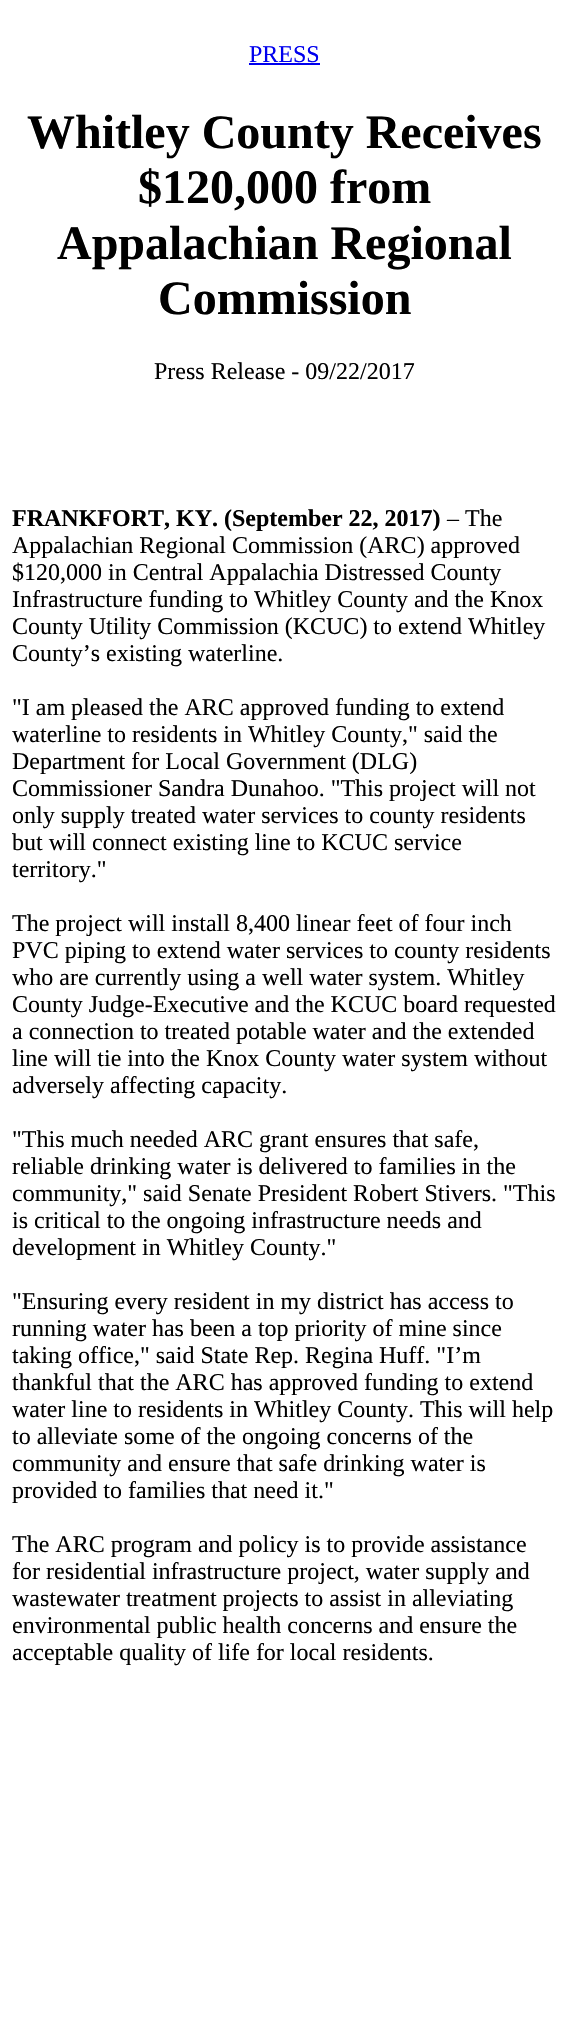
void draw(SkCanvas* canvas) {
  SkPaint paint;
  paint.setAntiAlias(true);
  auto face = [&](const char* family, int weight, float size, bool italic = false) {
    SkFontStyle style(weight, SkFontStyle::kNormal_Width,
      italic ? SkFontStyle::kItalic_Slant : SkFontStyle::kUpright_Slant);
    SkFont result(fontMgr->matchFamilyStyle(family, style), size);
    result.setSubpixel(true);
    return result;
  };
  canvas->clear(0xffffffff);
  paint.setColor(0xff0000ee);
  canvas->drawRect(SkRect::MakeXYWH(249, 63, 71, 2), paint);
  auto f0 = face("Liberation Serif", 400, 24);
  canvas->drawString("PRESS", 249, 62, f0, paint);
  auto f1 = face("Liberation Serif", 700, 48);
  paint.setColor(0xff000000);
  {
    const struct { const char* s; float x, y; } items[] = {
      {"Whitley County Receives", 27, 148},
      {"$120,000 from", 138, 203},
      {"Appalachian Regional", 57, 259},
      {"Commission", 158, 314},
    };
    for (auto [s, x, y] : items) {
      canvas->drawString(s, x, y, f1, paint);
    }
  }
  canvas->drawString("Press Release - 09/22/2017", 154, 379, f0, paint);
  auto f2 = face("Liberation Serif", 700, 24);
  canvas->drawString("FRANKFORT, KY. (September 22, 2017)", 12, 526, f2, paint);
  {
    const struct { const char* s; float x, y; } items[] = {
      {"– The", 447, 526},
      {"Appalachian Regional Commission (ARC) approved", 12, 553},
      {"$120,000 in Central Appalachia Distressed County", 12, 580},
      {"Infrastructure funding to Whitley County and the Knox", 12, 607},
      {"County Utility Commission (KCUC) to extend Whitley", 12, 634},
      {"County’s existing waterline.", 12, 661},
      {"\"I am pleased the ARC approved funding to extend", 12, 715},
      {"waterline to residents in Whitley County,\" said the", 12, 742},
      {"Department for Local Government (DLG)", 12, 769},
      {"Commissioner Sandra Dunahoo. \"This project will not", 12, 796},
      {"only supply treated water services to county residents", 12, 823},
      {"but will connect existing line to KCUC service", 12, 850},
      {"territory.\"", 12, 877},
      {"The project will install 8,400 linear feet of four inch", 12, 931},
      {"PVC piping to extend water services to county residents", 12, 958},
      {"who are currently using a well water system. Whitley", 12, 985},
      {"County Judge-Executive and the KCUC board requested", 12, 1012},
      {"a connection to treated potable water and the extended", 12, 1039},
      {"line will tie into the Knox County water system without", 12, 1066},
      {"adversely affecting capacity.", 12, 1093},
      {"\"This much needed ARC grant ensures that safe,", 12, 1147},
      {"reliable drinking water is delivered to families in the", 12, 1174},
      {"community,\" said Senate President Robert Stivers. \"This", 12, 1201},
      {"is critical to the ongoing infrastructure needs and", 12, 1228},
      {"development in Whitley County.\"", 12, 1255},
      {"\"Ensuring every resident in my district has access to", 12, 1309},
      {"running water has been a top priority of mine since", 12, 1336},
      {"taking office,\" said State Rep. Regina Huff. \"I’m", 12, 1363},
      {"thankful that the ARC has approved funding to extend", 12, 1390},
      {"water line to residents in Whitley County. This will help", 12, 1417},
      {"to alleviate some of the ongoing concerns of the", 12, 1444},
      {"community and ensure that safe drinking water is", 12, 1471},
      {"provided to families that need it.\"", 12, 1498},
      {"The ARC program and policy is to provide assistance", 12, 1552},
      {"for residential infrastructure project, water supply and", 12, 1579},
      {"wastewater treatment projects to assist in alleviating", 12, 1606},
      {"environmental public health concerns and ensure the", 12, 1633},
      {"acceptable quality of life for local residents.", 12, 1660},
    };
    for (auto [s, x, y] : items) {
      canvas->drawString(s, x, y, f0, paint);
    }
  }
}
